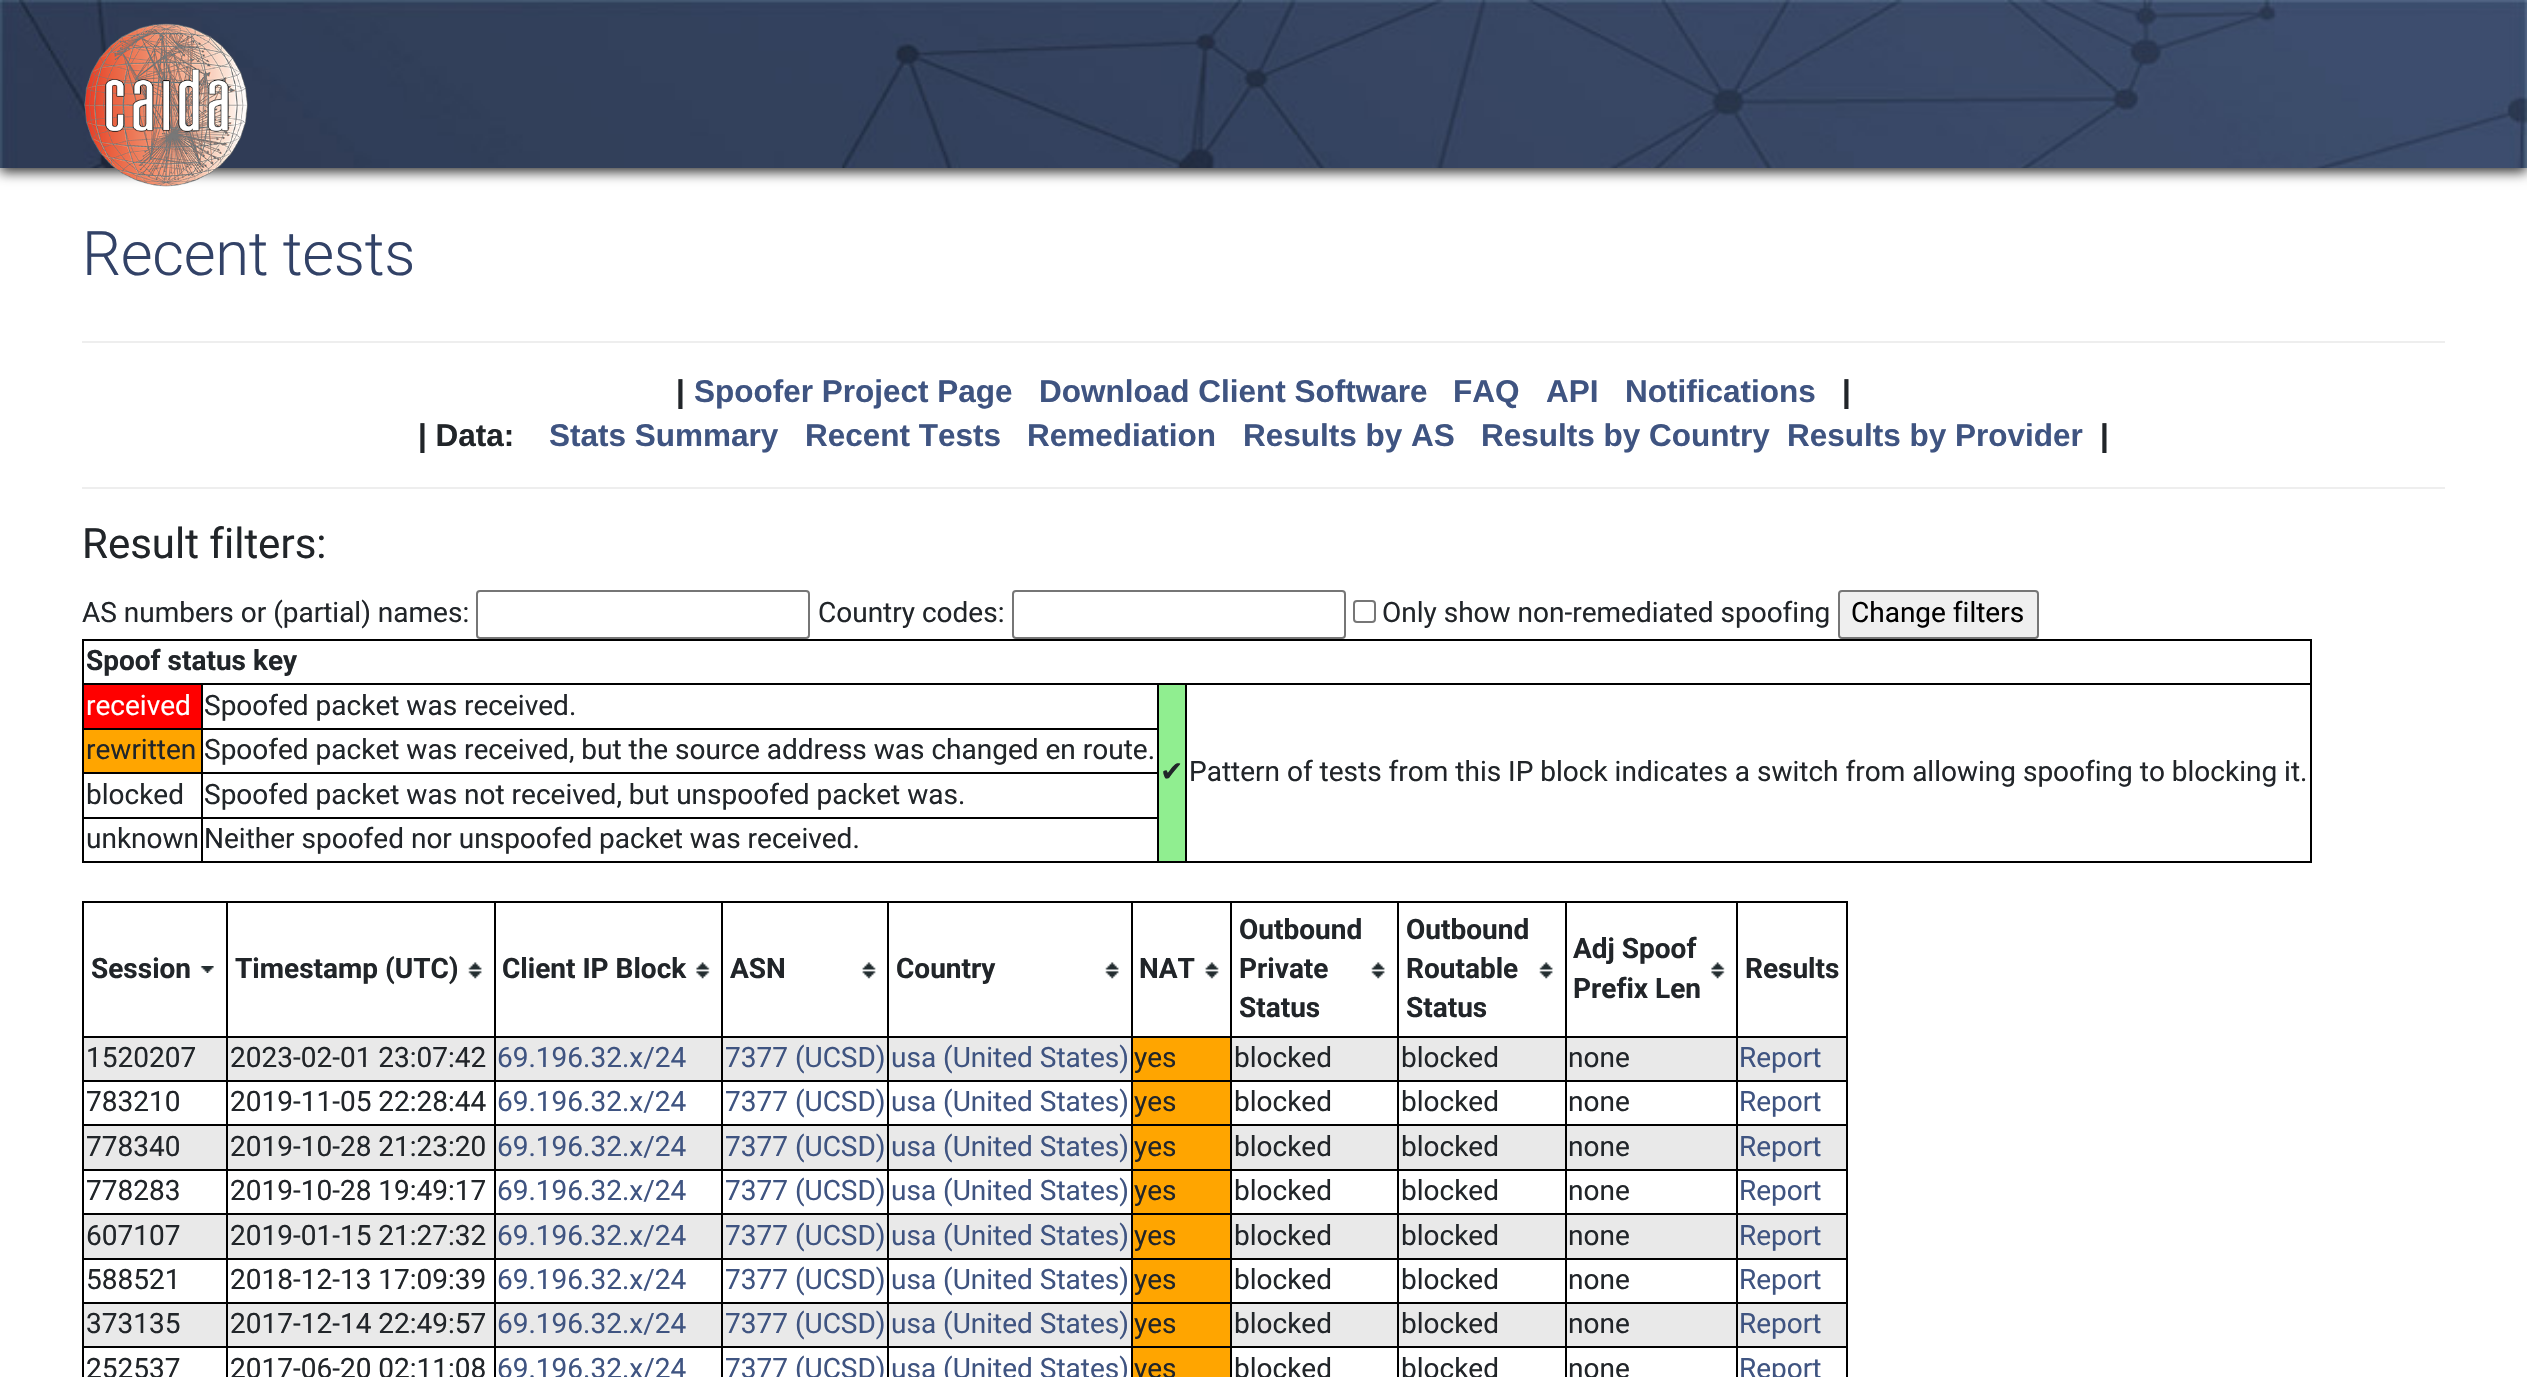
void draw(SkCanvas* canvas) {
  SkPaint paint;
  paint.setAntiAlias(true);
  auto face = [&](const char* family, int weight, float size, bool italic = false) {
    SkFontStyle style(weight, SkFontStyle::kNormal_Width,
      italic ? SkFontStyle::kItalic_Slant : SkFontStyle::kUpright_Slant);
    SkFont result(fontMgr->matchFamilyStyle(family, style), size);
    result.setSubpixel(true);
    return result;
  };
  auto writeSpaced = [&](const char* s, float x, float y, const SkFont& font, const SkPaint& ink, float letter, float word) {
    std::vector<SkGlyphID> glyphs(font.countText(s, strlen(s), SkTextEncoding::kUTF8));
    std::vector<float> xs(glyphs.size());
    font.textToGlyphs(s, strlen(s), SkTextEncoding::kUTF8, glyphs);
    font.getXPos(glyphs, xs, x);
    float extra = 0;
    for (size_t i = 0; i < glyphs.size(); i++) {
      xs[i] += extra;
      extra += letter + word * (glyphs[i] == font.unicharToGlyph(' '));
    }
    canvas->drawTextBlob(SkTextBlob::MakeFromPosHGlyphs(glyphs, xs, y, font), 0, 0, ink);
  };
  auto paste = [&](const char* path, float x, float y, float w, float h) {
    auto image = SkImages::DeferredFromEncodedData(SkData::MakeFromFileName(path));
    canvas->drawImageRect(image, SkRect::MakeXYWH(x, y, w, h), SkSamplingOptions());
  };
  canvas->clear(0xffffffff);
  paint.setColor(0xff333333);
  paint.setMaskFilter(SkMaskFilter::MakeBlur(kNormal_SkBlurStyle, 6));
  canvas->drawRect(SkRect::MakeXYWH(0, 4, 2527, 168), paint);
  paint.setMaskFilter(nullptr);
  paste("img/1.png", 0, 0, 2527, 168);
  paste("img/2.png", 84, 23, 164, 164);
  paint.setColor(0xffeeeeee);
  canvas->drawRect(SkRect::MakeXYWH(82, 341, 2363, 2), paint);
  canvas->drawRect(SkRect::MakeXYWH(82, 487, 2363, 2), paint);
  paint.setStroke(true);
  paint.setStrokeWidth(2);
  paint.setColor(0xff767676);
  canvas->drawRoundRect(SkRect::MakeXYWH(477, 591, 332, 47), 3, 3, paint);
  canvas->drawRoundRect(SkRect::MakeXYWH(1013, 591, 332, 47), 3, 3, paint);
  canvas->drawRoundRect(SkRect::MakeXYWH(1354, 601, 21, 21), 3, 3, paint);
  paint.setStroke(false);
  paint.setColor(0xffefefef);
  canvas->drawRoundRect(SkRect::MakeXYWH(1839, 591, 199, 47), 3, 3, paint);
  paint.setStroke(true);
  paint.setColor(0xff767676);
  canvas->drawRoundRect(SkRect::MakeXYWH(1839, 591, 199, 47), 3, 3, paint);
  paint.setStroke(false);
  {
    const struct { float x, y, w, h; SkColor color; } items[] = {
      {82, 639, 2230, 2, 0xff000000},
      {2310, 639, 2, 224, 0xff000000},
      {82, 861, 2230, 2, 0xff000000},
      {82, 639, 2, 224, 0xff000000},
      {84, 685, 117, 43, 0xffff0000},
      {1185, 683, 1127, 2, 0xff000000},
      {1185, 683, 2, 180, 0xff000000},
      {1157, 683, 30, 2, 0xff000000},
      {201, 728, 958, 2, 0xff000000},
      {201, 772, 958, 2, 0xff000000},
      {201, 817, 958, 2, 0xff000000},
      {1157, 683, 2, 180, 0xff000000},
      {201, 683, 958, 2, 0xff000000},
      {201, 817, 2, 46, 0xff000000},
      {82, 817, 121, 2, 0xff000000},
      {201, 772, 2, 47, 0xff000000},
      {82, 772, 121, 2, 0xff000000},
      {201, 728, 2, 46, 0xff000000},
      {82, 728, 121, 2, 0xff000000},
      {201, 683, 2, 47, 0xff000000},
      {82, 683, 121, 2, 0xff000000},
      {1159, 685, 26, 176, 0xff90ee90},
      {84, 730, 117, 42, 0xffffa500},
      {82, 901, 1766, 2, 0xff000000},
      {1846, 901, 2, 476, 0xff000000},
      {82, 901, 2, 476, 0xff000000},
    };
    for (auto [x, y, w, h, color] : items) {
      paint.setColor(color);
      canvas->drawRect(SkRect::MakeXYWH(x, y, w, h), paint);
    }
  }
  paste("img/3.png", 200, 966, 14, 7);
  paste("img/4.png", 468, 962, 14, 17);
  {
    const struct { float x, y, w, h; SkColor color; } items[] = {
      {1736, 1036, 112, 2, 0xff000000},
      {1736, 1080, 112, 2, 0xff000000},
      {1736, 1124, 112, 2, 0xff000000},
      {1736, 1169, 112, 2, 0xff000000},
      {1736, 1213, 112, 2, 0xff000000},
      {1736, 1258, 112, 2, 0xff000000},
      {1736, 1302, 112, 2, 0xff000000},
      {1736, 1346, 112, 2, 0xff000000},
      {1736, 1346, 2, 31, 0xff000000},
      {1565, 1346, 173, 2, 0xff000000},
      {1736, 1302, 2, 46, 0xff000000},
      {1565, 1302, 173, 2, 0xff000000},
      {1736, 1258, 2, 46, 0xff000000},
      {1565, 1258, 173, 2, 0xff000000},
      {1736, 1213, 2, 47, 0xff000000},
      {1565, 1213, 173, 2, 0xff000000},
      {1736, 1169, 2, 46, 0xff000000},
      {1565, 1169, 173, 2, 0xff000000},
      {1736, 1124, 2, 47, 0xff000000},
      {1565, 1124, 173, 2, 0xff000000},
      {1736, 1080, 2, 45, 0xff000000},
      {1565, 1080, 173, 2, 0xff000000},
      {1736, 1036, 2, 46, 0xff000000},
      {1565, 1036, 173, 2, 0xff000000},
      {1565, 1346, 2, 31, 0xff000000},
      {1397, 1346, 169, 2, 0xff000000},
      {1565, 1302, 2, 46, 0xff000000},
      {1397, 1302, 169, 2, 0xff000000},
      {1565, 1258, 2, 46, 0xff000000},
      {1397, 1258, 169, 2, 0xff000000},
      {1565, 1213, 2, 47, 0xff000000},
      {1397, 1213, 169, 2, 0xff000000},
      {1565, 1169, 2, 46, 0xff000000},
      {1397, 1169, 169, 2, 0xff000000},
      {1565, 1124, 2, 47, 0xff000000},
      {1397, 1124, 169, 2, 0xff000000},
      {1565, 1080, 2, 45, 0xff000000},
      {1397, 1080, 169, 2, 0xff000000},
      {1565, 1036, 2, 46, 0xff000000},
      {1397, 1036, 169, 2, 0xff000000},
      {1397, 1346, 2, 31, 0xff000000},
      {1230, 1346, 168, 2, 0xff000000},
      {1397, 1302, 2, 46, 0xff000000},
      {1230, 1302, 168, 2, 0xff000000},
      {1397, 1258, 2, 46, 0xff000000},
      {1230, 1258, 168, 2, 0xff000000},
      {1397, 1213, 2, 47, 0xff000000},
      {1230, 1213, 168, 2, 0xff000000},
      {1397, 1169, 2, 46, 0xff000000},
      {1230, 1169, 168, 2, 0xff000000},
      {1397, 1124, 2, 47, 0xff000000},
      {1230, 1124, 168, 2, 0xff000000},
      {1397, 1080, 2, 45, 0xff000000},
      {1230, 1080, 168, 2, 0xff000000},
      {1397, 1036, 2, 46, 0xff000000},
      {1230, 1036, 168, 2, 0xff000000},
      {1230, 1346, 2, 31, 0xff000000},
      {1131, 1346, 101, 2, 0xff000000},
      {1230, 1302, 2, 46, 0xff000000},
      {1131, 1302, 101, 2, 0xff000000},
      {1230, 1258, 2, 46, 0xff000000},
      {1131, 1258, 101, 2, 0xff000000},
      {1230, 1213, 2, 47, 0xff000000},
      {1131, 1213, 101, 2, 0xff000000},
      {1230, 1169, 2, 46, 0xff000000},
      {1131, 1169, 101, 2, 0xff000000},
      {1230, 1124, 2, 47, 0xff000000},
      {1131, 1124, 101, 2, 0xff000000},
      {1230, 1080, 2, 45, 0xff000000},
      {1131, 1080, 101, 2, 0xff000000},
      {1230, 1036, 2, 46, 0xff000000},
      {1131, 1036, 101, 2, 0xff000000},
      {1131, 1346, 2, 31, 0xff000000},
      {887, 1346, 245, 2, 0xff000000},
      {1131, 1302, 2, 46, 0xff000000},
      {887, 1302, 245, 2, 0xff000000},
      {1131, 1258, 2, 46, 0xff000000},
      {887, 1258, 245, 2, 0xff000000},
      {1131, 1213, 2, 47, 0xff000000},
      {887, 1213, 245, 2, 0xff000000},
      {1131, 1169, 2, 46, 0xff000000},
      {887, 1169, 245, 2, 0xff000000},
      {1131, 1124, 2, 47, 0xff000000},
      {887, 1124, 245, 2, 0xff000000},
      {1131, 1080, 2, 45, 0xff000000},
      {887, 1080, 245, 2, 0xff000000},
      {1131, 1036, 2, 46, 0xff000000},
      {887, 1036, 245, 2, 0xff000000},
      {887, 1346, 2, 31, 0xff000000},
      {721, 1346, 168, 2, 0xff000000},
      {887, 1302, 2, 46, 0xff000000},
      {721, 1302, 168, 2, 0xff000000},
      {887, 1258, 2, 46, 0xff000000},
      {721, 1258, 168, 2, 0xff000000},
      {887, 1213, 2, 47, 0xff000000},
      {721, 1213, 168, 2, 0xff000000},
      {887, 1169, 2, 46, 0xff000000},
      {721, 1169, 168, 2, 0xff000000},
      {887, 1124, 2, 47, 0xff000000},
      {721, 1124, 168, 2, 0xff000000},
      {887, 1080, 2, 45, 0xff000000},
      {721, 1080, 168, 2, 0xff000000},
      {887, 1036, 2, 46, 0xff000000},
      {721, 1036, 168, 2, 0xff000000},
      {721, 1346, 2, 31, 0xff000000},
      {494, 1346, 229, 2, 0xff000000},
      {721, 1302, 2, 46, 0xff000000},
      {494, 1302, 229, 2, 0xff000000},
      {721, 1258, 2, 46, 0xff000000},
      {494, 1258, 229, 2, 0xff000000},
      {721, 1213, 2, 47, 0xff000000},
      {494, 1213, 229, 2, 0xff000000},
      {721, 1169, 2, 46, 0xff000000},
      {494, 1169, 229, 2, 0xff000000},
      {721, 1124, 2, 47, 0xff000000},
      {494, 1124, 229, 2, 0xff000000},
      {721, 1080, 2, 45, 0xff000000},
      {494, 1080, 229, 2, 0xff000000},
      {721, 1036, 2, 46, 0xff000000},
      {494, 1036, 229, 2, 0xff000000},
      {494, 1346, 2, 31, 0xff000000},
      {226, 1346, 269, 2, 0xff000000},
      {494, 1302, 2, 46, 0xff000000},
      {226, 1302, 269, 2, 0xff000000},
      {494, 1258, 2, 46, 0xff000000},
      {226, 1258, 269, 2, 0xff000000},
      {494, 1213, 2, 47, 0xff000000},
      {226, 1213, 269, 2, 0xff000000},
      {494, 1169, 2, 46, 0xff000000},
      {226, 1169, 269, 2, 0xff000000},
      {494, 1124, 2, 47, 0xff000000},
      {226, 1124, 269, 2, 0xff000000},
      {494, 1080, 2, 45, 0xff000000},
      {226, 1080, 269, 2, 0xff000000},
      {494, 1036, 2, 46, 0xff000000},
      {226, 1036, 269, 2, 0xff000000},
      {226, 1346, 2, 31, 0xff000000},
      {82, 1346, 146, 2, 0xff000000},
      {226, 1302, 2, 46, 0xff000000},
      {82, 1302, 146, 2, 0xff000000},
      {226, 1258, 2, 46, 0xff000000},
      {82, 1258, 146, 2, 0xff000000},
      {226, 1213, 2, 47, 0xff000000},
      {82, 1213, 146, 2, 0xff000000},
      {226, 1169, 2, 46, 0xff000000},
      {82, 1169, 146, 2, 0xff000000},
      {226, 1124, 2, 47, 0xff000000},
      {82, 1124, 146, 2, 0xff000000},
      {226, 1080, 2, 45, 0xff000000},
      {82, 1080, 146, 2, 0xff000000},
      {226, 1036, 2, 46, 0xff000000},
      {82, 1036, 146, 2, 0xff000000},
      {226, 901, 2, 137, 0xff000000},
    };
    for (auto [x, y, w, h, color] : items) {
      paint.setColor(color);
      canvas->drawRect(SkRect::MakeXYWH(x, y, w, h), paint);
    }
  }
  paste("img/5.png", 696, 962, 14, 17);
  canvas->drawRect(SkRect::MakeXYWH(494, 901, 2, 137), paint);
  paste("img/6.png", 862, 962, 14, 17);
  canvas->drawRect(SkRect::MakeXYWH(721, 901, 2, 137), paint);
  paste("img/7.png", 1105, 962, 14, 17);
  canvas->drawRect(SkRect::MakeXYWH(887, 901, 2, 137), paint);
  paste("img/6.png", 1205, 962, 14, 17);
  canvas->drawRect(SkRect::MakeXYWH(1131, 901, 2, 137), paint);
  paste("img/7.png", 1371, 962, 14, 17);
  canvas->drawRect(SkRect::MakeXYWH(1230, 901, 2, 137), paint);
  paste("img/4.png", 1539, 962, 14, 17);
  canvas->drawRect(SkRect::MakeXYWH(1397, 901, 2, 137), paint);
  paste("img/5.png", 1711, 962, 14, 17);
  {
    const struct { float x, y, w, h; SkColor color; } items[] = {
      {1565, 901, 2, 137, 0xff000000},
      {1736, 901, 2, 137, 0xff000000},
      {84, 1038, 142, 42, 0xffe9e9e9},
      {228, 1038, 266, 42, 0xffe9e9e9},
      {496, 1038, 225, 42, 0xffe9e9e9},
      {723, 1038, 164, 42, 0xffe9e9e9},
      {889, 1038, 242, 42, 0xffe9e9e9},
      {1133, 1038, 97, 42, 0xffffa500},
      {1232, 1038, 165, 42, 0xffe9e9e9},
      {1399, 1038, 166, 42, 0xffe9e9e9},
      {1567, 1038, 169, 42, 0xffe9e9e9},
      {1738, 1038, 108, 42, 0xffe9e9e9},
      {1133, 1082, 97, 42, 0xffffa500},
      {84, 1126, 142, 43, 0xffe9e9e9},
      {228, 1126, 266, 43, 0xffe9e9e9},
      {496, 1126, 225, 43, 0xffe9e9e9},
      {723, 1126, 164, 43, 0xffe9e9e9},
      {889, 1126, 242, 43, 0xffe9e9e9},
      {1133, 1126, 97, 43, 0xffffa500},
      {1232, 1126, 165, 43, 0xffe9e9e9},
      {1399, 1126, 166, 43, 0xffe9e9e9},
      {1567, 1126, 169, 43, 0xffe9e9e9},
      {1738, 1126, 108, 43, 0xffe9e9e9},
      {1133, 1171, 97, 42, 0xffffa500},
      {84, 1215, 142, 43, 0xffe9e9e9},
      {228, 1215, 266, 43, 0xffe9e9e9},
      {496, 1215, 225, 43, 0xffe9e9e9},
      {723, 1215, 164, 43, 0xffe9e9e9},
      {889, 1215, 242, 43, 0xffe9e9e9},
      {1133, 1215, 97, 43, 0xffffa500},
      {1232, 1215, 165, 43, 0xffe9e9e9},
      {1399, 1215, 166, 43, 0xffe9e9e9},
      {1567, 1215, 169, 43, 0xffe9e9e9},
      {1738, 1215, 108, 43, 0xffe9e9e9},
      {1133, 1260, 97, 42, 0xffffa500},
      {84, 1304, 142, 42, 0xffe9e9e9},
      {228, 1304, 266, 42, 0xffe9e9e9},
      {496, 1304, 225, 42, 0xffe9e9e9},
      {723, 1304, 164, 42, 0xffe9e9e9},
      {889, 1304, 242, 42, 0xffe9e9e9},
      {1133, 1304, 97, 42, 0xffffa500},
      {1232, 1304, 165, 42, 0xffe9e9e9},
      {1399, 1304, 166, 42, 0xffe9e9e9},
      {1567, 1304, 169, 42, 0xffe9e9e9},
      {1738, 1304, 108, 42, 0xffe9e9e9},
      {1133, 1348, 97, 29, 0xffffa500},
    };
    for (auto [x, y, w, h, color] : items) {
      paint.setColor(color);
      canvas->drawRect(SkRect::MakeXYWH(x, y, w, h), paint);
    }
  }
  auto f0 = face("Roboto", 300, 61.5f);
  paint.setColor(0xff324267);
  writeSpaced("Recent tests", 82, 275, f0, paint, -0.3f, 0);
  auto f1 = face("Liberation Sans", 700, 31.5f);
  paint.setColor(0xff212529);
  canvas->drawString("|", 676, 402, f1, paint);
  paint.setColor(0xff3f5481);
  {
    const struct { const char* s; float x, y; } items[] = {
      {"Spoofer Project Page", 694, 402},
      {"Download Client Software", 1039, 402},
      {"FAQ", 1453, 402},
      {"API", 1546, 402},
      {"Notifications", 1625, 402},
    };
    for (auto [s, x, y] : items) {
      canvas->drawString(s, x, y, f1, paint);
    }
  }
  paint.setColor(0xff212529);
  canvas->drawString("|", 1842, 402, f1, paint);
  canvas->drawString("| Data:", 418, 446, f1, paint);
  paint.setColor(0xff3f5481);
  {
    const struct { const char* s; float x, y; } items[] = {
      {"Stats Summary", 549, 446},
      {"Recent Tests", 805, 446},
      {"Remediation", 1027, 446},
      {"Results by AS", 1243, 446},
      {"Results by Country", 1481, 446},
      {"Results by Provider", 1787, 446},
    };
    for (auto [s, x, y] : items) {
      canvas->drawString(s, x, y, f1, paint);
    }
  }
  paint.setColor(0xff212529);
  canvas->drawString("|", 2100, 446, f1, paint);
  auto f2 = face("Roboto", 400, 42);
  canvas->drawString("Result filters:", 82, 558, f2, paint);
  auto f3 = face("Roboto", 400, 28);
  {
    const struct { const char* s; float x, y; } items[] = {
      {"AS numbers or (partial) names:", 82, 622},
      {"Country codes:", 818, 622},
      {"Only show non-remediated spoofing", 1382, 622},
    };
    for (auto [s, x, y] : items) {
      canvas->drawString(s, x, y, f3, paint);
    }
  }
  paint.setColor(0xff000000);
  canvas->drawString("Change filters", 1851, 622, f3, paint);
  auto f4 = face("Roboto", 700, 28);
  paint.setColor(0xff212529);
  canvas->drawString("Spoof status key", 86, 670, f4, paint);
  paint.setColor(0xffffffff);
  canvas->drawString("received", 86, 715, f3, paint);
  paint.setColor(0xff212529);
  canvas->drawString("Spoofed packet was received.", 204, 715, f3, paint);
  auto f5 = face("DejaVu Sans", 400, 28);
  canvas->drawString("✔", 1160, 781, f5, paint);
  {
    const struct { const char* s; float x, y; } items[] = {
      {"Pattern of tests from this IP block indicates a switch from allowing spoofing to blocking it.", 1189, 781},
      {"rewritten", 86, 759},
      {"Spoofed packet was received, but the source address was changed en route.", 204, 759},
      {"blocked", 86, 804},
      {"Spoofed packet was not received, but unspoofed packet was.", 204, 804},
      {"unknown", 86, 848},
      {"Neither spoofed nor unspoofed packet was received.", 204, 848},
    };
    for (auto [s, x, y] : items) {
      canvas->drawString(s, x, y, f3, paint);
    }
  }
  {
    const struct { const char* s; float x, y; } items[] = {
      {"Session", 91, 978},
      {"Timestamp (UTC)", 235, 978},
      {"Client IP Block", 502, 978},
      {"ASN", 730, 978},
      {"Country", 896, 978},
      {"NAT", 1139, 978},
      {"Outbound", 1239, 939},
      {"Private", 1239, 978},
      {"Status", 1239, 1017},
      {"Outbound", 1406, 939},
      {"Routable", 1406, 978},
      {"Status", 1406, 1017},
      {"Adj Spoof", 1573, 958},
      {"Prefix Len", 1573, 998},
      {"Results", 1745, 978},
    };
    for (auto [s, x, y] : items) {
      canvas->drawString(s, x, y, f4, paint);
    }
  }
  canvas->drawString("1520207", 86, 1067, f3, paint);
  canvas->drawString("2023-02-01 23:07:42", 230, 1067, f3, paint);
  paint.setColor(0xff3f5481);
  {
    const struct { const char* s; float x, y; } items[] = {
      {"69.196.32.x/24", 497, 1067},
      {"7377 (UCSD)", 725, 1067},
      {"usa (United States)", 891, 1067},
    };
    for (auto [s, x, y] : items) {
      canvas->drawString(s, x, y, f3, paint);
    }
  }
  paint.setColor(0xff212529);
  {
    const struct { const char* s; float x, y; } items[] = {
      {"yes", 1134, 1067},
      {"blocked", 1234, 1067},
      {"blocked", 1401, 1067},
      {"none", 1568, 1067},
    };
    for (auto [s, x, y] : items) {
      canvas->drawString(s, x, y, f3, paint);
    }
  }
  paint.setColor(0xff3f5481);
  canvas->drawString("Report", 1739, 1067, f3, paint);
  paint.setColor(0xff212529);
  canvas->drawString("783210", 86, 1111, f3, paint);
  canvas->drawString("2019-11-05 22:28:44", 230, 1111, f3, paint);
  paint.setColor(0xff3f5481);
  {
    const struct { const char* s; float x, y; } items[] = {
      {"69.196.32.x/24", 497, 1111},
      {"7377 (UCSD)", 725, 1111},
      {"usa (United States)", 891, 1111},
    };
    for (auto [s, x, y] : items) {
      canvas->drawString(s, x, y, f3, paint);
    }
  }
  paint.setColor(0xff212529);
  {
    const struct { const char* s; float x, y; } items[] = {
      {"yes", 1134, 1111},
      {"blocked", 1234, 1111},
      {"blocked", 1401, 1111},
      {"none", 1568, 1111},
    };
    for (auto [s, x, y] : items) {
      canvas->drawString(s, x, y, f3, paint);
    }
  }
  paint.setColor(0xff3f5481);
  canvas->drawString("Report", 1739, 1111, f3, paint);
  paint.setColor(0xff212529);
  canvas->drawString("778340", 86, 1156, f3, paint);
  canvas->drawString("2019-10-28 21:23:20", 230, 1156, f3, paint);
  paint.setColor(0xff3f5481);
  {
    const struct { const char* s; float x, y; } items[] = {
      {"69.196.32.x/24", 497, 1156},
      {"7377 (UCSD)", 725, 1156},
      {"usa (United States)", 891, 1156},
    };
    for (auto [s, x, y] : items) {
      canvas->drawString(s, x, y, f3, paint);
    }
  }
  paint.setColor(0xff212529);
  {
    const struct { const char* s; float x, y; } items[] = {
      {"yes", 1134, 1156},
      {"blocked", 1234, 1156},
      {"blocked", 1401, 1156},
      {"none", 1568, 1156},
    };
    for (auto [s, x, y] : items) {
      canvas->drawString(s, x, y, f3, paint);
    }
  }
  paint.setColor(0xff3f5481);
  canvas->drawString("Report", 1739, 1156, f3, paint);
  paint.setColor(0xff212529);
  canvas->drawString("778283", 86, 1200, f3, paint);
  canvas->drawString("2019-10-28 19:49:17", 230, 1200, f3, paint);
  paint.setColor(0xff3f5481);
  {
    const struct { const char* s; float x, y; } items[] = {
      {"69.196.32.x/24", 497, 1200},
      {"7377 (UCSD)", 725, 1200},
      {"usa (United States)", 891, 1200},
    };
    for (auto [s, x, y] : items) {
      canvas->drawString(s, x, y, f3, paint);
    }
  }
  paint.setColor(0xff212529);
  {
    const struct { const char* s; float x, y; } items[] = {
      {"yes", 1134, 1200},
      {"blocked", 1234, 1200},
      {"blocked", 1401, 1200},
      {"none", 1568, 1200},
    };
    for (auto [s, x, y] : items) {
      canvas->drawString(s, x, y, f3, paint);
    }
  }
  paint.setColor(0xff3f5481);
  canvas->drawString("Report", 1739, 1200, f3, paint);
  paint.setColor(0xff212529);
  canvas->drawString("607107", 86, 1245, f3, paint);
  canvas->drawString("2019-01-15 21:27:32", 230, 1245, f3, paint);
  paint.setColor(0xff3f5481);
  {
    const struct { const char* s; float x, y; } items[] = {
      {"69.196.32.x/24", 497, 1245},
      {"7377 (UCSD)", 725, 1245},
      {"usa (United States)", 891, 1245},
    };
    for (auto [s, x, y] : items) {
      canvas->drawString(s, x, y, f3, paint);
    }
  }
  paint.setColor(0xff212529);
  {
    const struct { const char* s; float x, y; } items[] = {
      {"yes", 1134, 1245},
      {"blocked", 1234, 1245},
      {"blocked", 1401, 1245},
      {"none", 1568, 1245},
    };
    for (auto [s, x, y] : items) {
      canvas->drawString(s, x, y, f3, paint);
    }
  }
  paint.setColor(0xff3f5481);
  canvas->drawString("Report", 1739, 1245, f3, paint);
  paint.setColor(0xff212529);
  canvas->drawString("588521", 86, 1289, f3, paint);
  canvas->drawString("2018-12-13 17:09:39", 230, 1289, f3, paint);
  paint.setColor(0xff3f5481);
  {
    const struct { const char* s; float x, y; } items[] = {
      {"69.196.32.x/24", 497, 1289},
      {"7377 (UCSD)", 725, 1289},
      {"usa (United States)", 891, 1289},
    };
    for (auto [s, x, y] : items) {
      canvas->drawString(s, x, y, f3, paint);
    }
  }
  paint.setColor(0xff212529);
  {
    const struct { const char* s; float x, y; } items[] = {
      {"yes", 1134, 1289},
      {"blocked", 1234, 1289},
      {"blocked", 1401, 1289},
      {"none", 1568, 1289},
    };
    for (auto [s, x, y] : items) {
      canvas->drawString(s, x, y, f3, paint);
    }
  }
  paint.setColor(0xff3f5481);
  canvas->drawString("Report", 1739, 1289, f3, paint);
  paint.setColor(0xff212529);
  canvas->drawString("373135", 86, 1333, f3, paint);
  canvas->drawString("2017-12-14 22:49:57", 230, 1333, f3, paint);
  paint.setColor(0xff3f5481);
  {
    const struct { const char* s; float x, y; } items[] = {
      {"69.196.32.x/24", 497, 1333},
      {"7377 (UCSD)", 725, 1333},
      {"usa (United States)", 891, 1333},
    };
    for (auto [s, x, y] : items) {
      canvas->drawString(s, x, y, f3, paint);
    }
  }
  paint.setColor(0xff212529);
  {
    const struct { const char* s; float x, y; } items[] = {
      {"yes", 1134, 1333},
      {"blocked", 1234, 1333},
      {"blocked", 1401, 1333},
      {"none", 1568, 1333},
    };
    for (auto [s, x, y] : items) {
      canvas->drawString(s, x, y, f3, paint);
    }
  }
  paint.setColor(0xff3f5481);
  canvas->drawString("Report", 1739, 1333, f3, paint);
  paint.setColor(0xff212529);
  canvas->drawString("252537", 86, 1378, f3, paint);
  canvas->drawString("2017-06-20 02:11:08", 230, 1378, f3, paint);
  paint.setColor(0xff3f5481);
  {
    const struct { const char* s; float x, y; } items[] = {
      {"69.196.32.x/24", 497, 1378},
      {"7377 (UCSD)", 725, 1378},
      {"usa (United States)", 891, 1378},
    };
    for (auto [s, x, y] : items) {
      canvas->drawString(s, x, y, f3, paint);
    }
  }
  paint.setColor(0xff212529);
  {
    const struct { const char* s; float x, y; } items[] = {
      {"yes", 1134, 1378},
      {"blocked", 1234, 1378},
      {"blocked", 1401, 1378},
      {"none", 1568, 1378},
    };
    for (auto [s, x, y] : items) {
      canvas->drawString(s, x, y, f3, paint);
    }
  }
  paint.setColor(0xff3f5481);
  canvas->drawString("Report", 1739, 1378, f3, paint);
}
